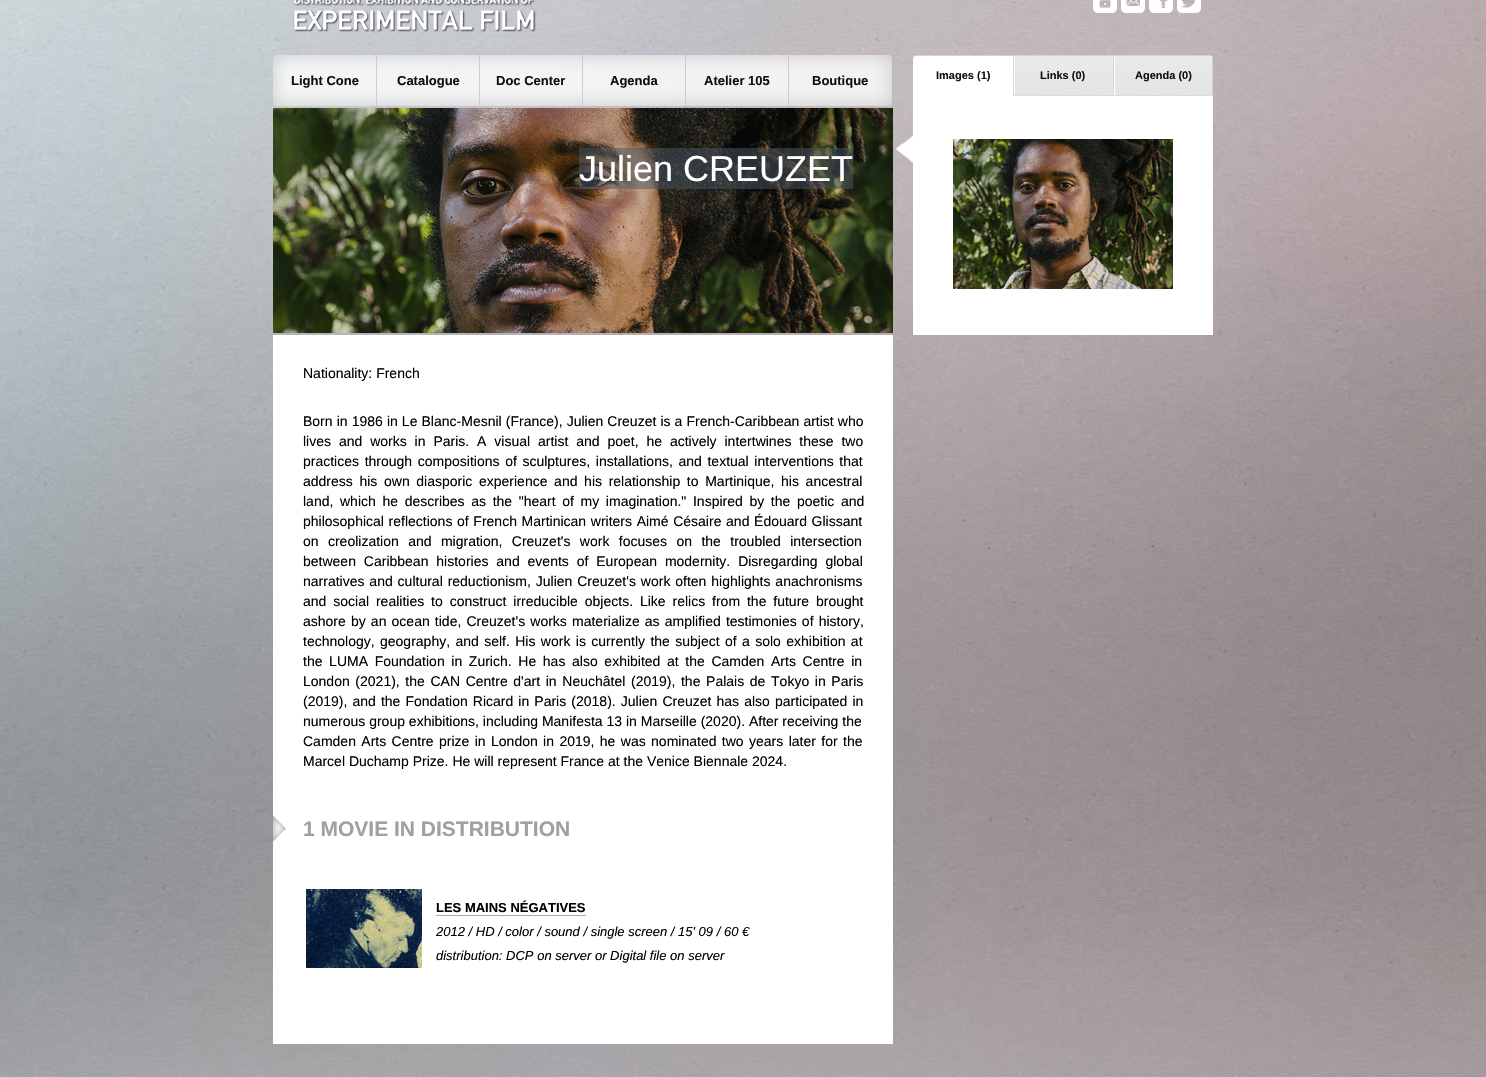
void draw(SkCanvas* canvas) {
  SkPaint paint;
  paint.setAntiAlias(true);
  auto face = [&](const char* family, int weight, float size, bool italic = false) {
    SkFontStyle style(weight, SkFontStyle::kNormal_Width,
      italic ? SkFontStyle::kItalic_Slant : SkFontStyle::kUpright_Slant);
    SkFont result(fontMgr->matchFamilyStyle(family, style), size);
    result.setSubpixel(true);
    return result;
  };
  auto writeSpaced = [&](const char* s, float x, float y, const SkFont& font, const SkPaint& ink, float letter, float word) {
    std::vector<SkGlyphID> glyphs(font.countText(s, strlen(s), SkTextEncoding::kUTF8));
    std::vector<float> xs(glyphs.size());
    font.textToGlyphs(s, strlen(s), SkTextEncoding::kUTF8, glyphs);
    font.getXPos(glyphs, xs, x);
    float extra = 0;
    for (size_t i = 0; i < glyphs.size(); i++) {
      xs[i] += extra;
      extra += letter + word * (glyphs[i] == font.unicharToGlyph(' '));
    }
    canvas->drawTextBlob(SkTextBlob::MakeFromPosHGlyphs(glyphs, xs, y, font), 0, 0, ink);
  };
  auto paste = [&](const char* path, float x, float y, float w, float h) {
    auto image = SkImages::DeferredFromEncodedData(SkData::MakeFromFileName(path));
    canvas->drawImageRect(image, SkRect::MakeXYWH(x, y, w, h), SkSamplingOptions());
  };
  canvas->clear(0xffffffff);
  paste("img/1.png", 0, 0, 1486, 1077);
  paste("img/2.png", 293, 0, 243, 32);
  paste("img/3.png", 1093, 0, 24, 13);
  paste("img/4.png", 1121, 0, 24, 13);
  paste("img/5.png", 1149, 0, 24, 13);
  paste("img/6.png", 1177, 0, 24, 13);
  paste("img/7.png", 273, 55, 103, 51);
  paste("img/8.png", 377, 55, 102, 51);
  paint.setColor(0xffcccccc);
  canvas->drawRect(SkRect::MakeXYWH(376, 55, 1, 51), paint);
  paste("img/9.png", 480, 55, 102, 51);
  canvas->drawRect(SkRect::MakeXYWH(479, 55, 1, 51), paint);
  paste("img/10.png", 583, 55, 102, 51);
  canvas->drawRect(SkRect::MakeXYWH(582, 55, 1, 51), paint);
  paste("img/11.png", 686, 55, 102, 51);
  canvas->drawRect(SkRect::MakeXYWH(685, 55, 1, 51), paint);
  paste("img/12.png", 789, 55, 103, 51);
  canvas->drawRect(SkRect::MakeXYWH(788, 55, 1, 51), paint);
  paste("img/13.png", 896, 135, 17, 28);
  paste("img/14.png", 913, 55, 100, 41);
  paste("img/15.png", 1013, 55, 100, 41);
  paste("img/16.png", 1113, 55, 100, 41);
  paint.setColor(0xffffffff);
  canvas->drawRect(SkRect::MakeXYWH(913, 96, 300, 239), paint);
  paste("img/17.png", 953, 139, 220, 150);
  paste("img/18.png", 273, 108, 620, 225);
  paint.setColor(0x804a5664);
  canvas->drawRect(SkRect::MakeXYWH(579, 148, 274, 41), paint);
  paint.setColor(0xffffffff);
  canvas->drawRect(SkRect::MakeXYWH(273, 335, 620, 709), paint);
  paste("img/19.png", 273, 815, 13, 27);
  paste("img/20.png", 306, 889, 116, 79);
  paint.setColor(0xffaaaaaa);
  canvas->drawRect(SkRect::MakeXYWH(436, 915, 150, 1), paint);
  auto f0 = face("Liberation Sans", 700, 13);
  paint.setColor(0xff101010);
  {
    const struct { const char* s; float x, y; } items[] = {
      {"Light Cone", 291, 85},
      {"Catalogue", 397, 85},
      {"Doc Center", 496, 85},
      {"Agenda", 610, 85},
      {"Atelier 105", 704, 85},
      {"Boutique", 812, 85},
    };
    for (auto [s, x, y] : items) {
      canvas->drawString(s, x, y, f0, paint);
    }
  }
  auto f1 = face("Liberation Sans", 700, 11);
  {
    const struct { const char* s; float x, y; } items[] = {
      {"Images (1)", 936, 79},
      {"Links (0)", 1040, 79},
      {"Agenda (0)", 1135, 79},
    };
    for (auto [s, x, y] : items) {
      canvas->drawString(s, x, y, f1, paint);
    }
  }
  auto f2 = face("Liberation Sans", 400, 36);
  paint.setColor(0xffffffff);
  canvas->drawString("Julien CREUZET", 579, 181, f2, paint);
  auto f3 = face("Liberation Sans", 400, 14);
  paint.setColor(0xff000000);
  canvas->drawString("Nationality: French", 303, 378, f3, paint);
  writeSpaced("Born in 1986 in Le Blanc-Mesnil (France), Julien Creuzet is a French-Caribbean artist who", 303, 426, f3, paint, 0, 0.2f);
  writeSpaced("lives and works in Paris. A visual artist and poet, he actively intertwines these two", 303, 446, f3, paint, 0, 4);
  writeSpaced("practices through compositions of sculptures, installations, and textual interventions that", 303, 466, f3, paint, 0, 1.75f);
  writeSpaced("address his own diasporic experience and his relationship to Martinique, his ancestral", 303, 486, f3, paint, 0, 2.75f);
  writeSpaced("land, which he describes as the \"heart of my imagination.\" Inspired by the poetic and", 303, 506, f3, paint, 0, 2.75f);
  writeSpaced("philosophical reflections of French Martinican writers Aimé Césaire and Édouard Glissant", 303, 526, f3, paint, 0, 0.75f);
  writeSpaced("on creolization and migration, Creuzet's work focuses on the troubled intersection", 303, 546, f3, paint, 0, 5.5f);
  writeSpaced("between Caribbean histories and events of European modernity. Disregarding global", 303, 566, f3, paint, 0, 4);
  writeSpaced("narratives and cultural reductionism, Julien Creuzet's work often highlights anachronisms", 303, 586, f3, paint, 0, 1);
  writeSpaced("and social realities to construct irreducible objects. Like relics from the future brought", 303, 606, f3, paint, 0, 3);
  writeSpaced("ashore by an ocean tide, Creuzet's works materialize as amplified testimonies of history,", 303, 626, f3, paint, 0, 1.25f);
  writeSpaced("technology, geography, and self. His work is currently the subject of a solo exhibition at", 303, 646, f3, paint, 0, 1.5f);
  writeSpaced("the LUMA Foundation in Zurich. He has also exhibited at the Camden Arts Centre in", 303, 666, f3, paint, 0, 2.75f);
  writeSpaced("London (2021), the CAN Centre d'art in Neuchâtel (2019), the Palais de Tokyo in Paris", 303, 686, f3, paint, 0, 1.75f);
  writeSpaced("(2019), and the Fondation Ricard in Paris (2018). Julien Creuzet has also participated in", 303, 706, f3, paint, 0, 1.2f);
  canvas->drawString("numerous group exhibitions, including Manifesta 13 in Marseille (2020). After receiving the", 303, 726, f3, paint);
  writeSpaced("Camden Arts Centre prize in London in 2019, he was nominated two years later for the", 303, 746, f3, paint, 0, 1.5f);
  canvas->drawString("Marcel Duchamp Prize. He will represent France at the Venice Biennale 2024.", 303, 766, f3, paint);
  auto f4 = face("Liberation Sans", 700, 21);
  paint.setColor(0xffa0a0a0);
  canvas->drawString("1 MOVIE IN DISTRIBUTION", 303, 836, f4, paint);
  paint.setColor(0xff000000);
  canvas->drawString("LES MAINS NÉGATIVES", 436, 912, f0, paint);
  auto f5 = face("Liberation Sans", 400, 13, true);
  canvas->drawString("2012 / HD / color / sound / single screen / 15' 09 / 60 €", 436, 936, f5, paint);
  canvas->drawString("distribution: DCP on server or Digital file on server", 436, 960, f5, paint);
}
